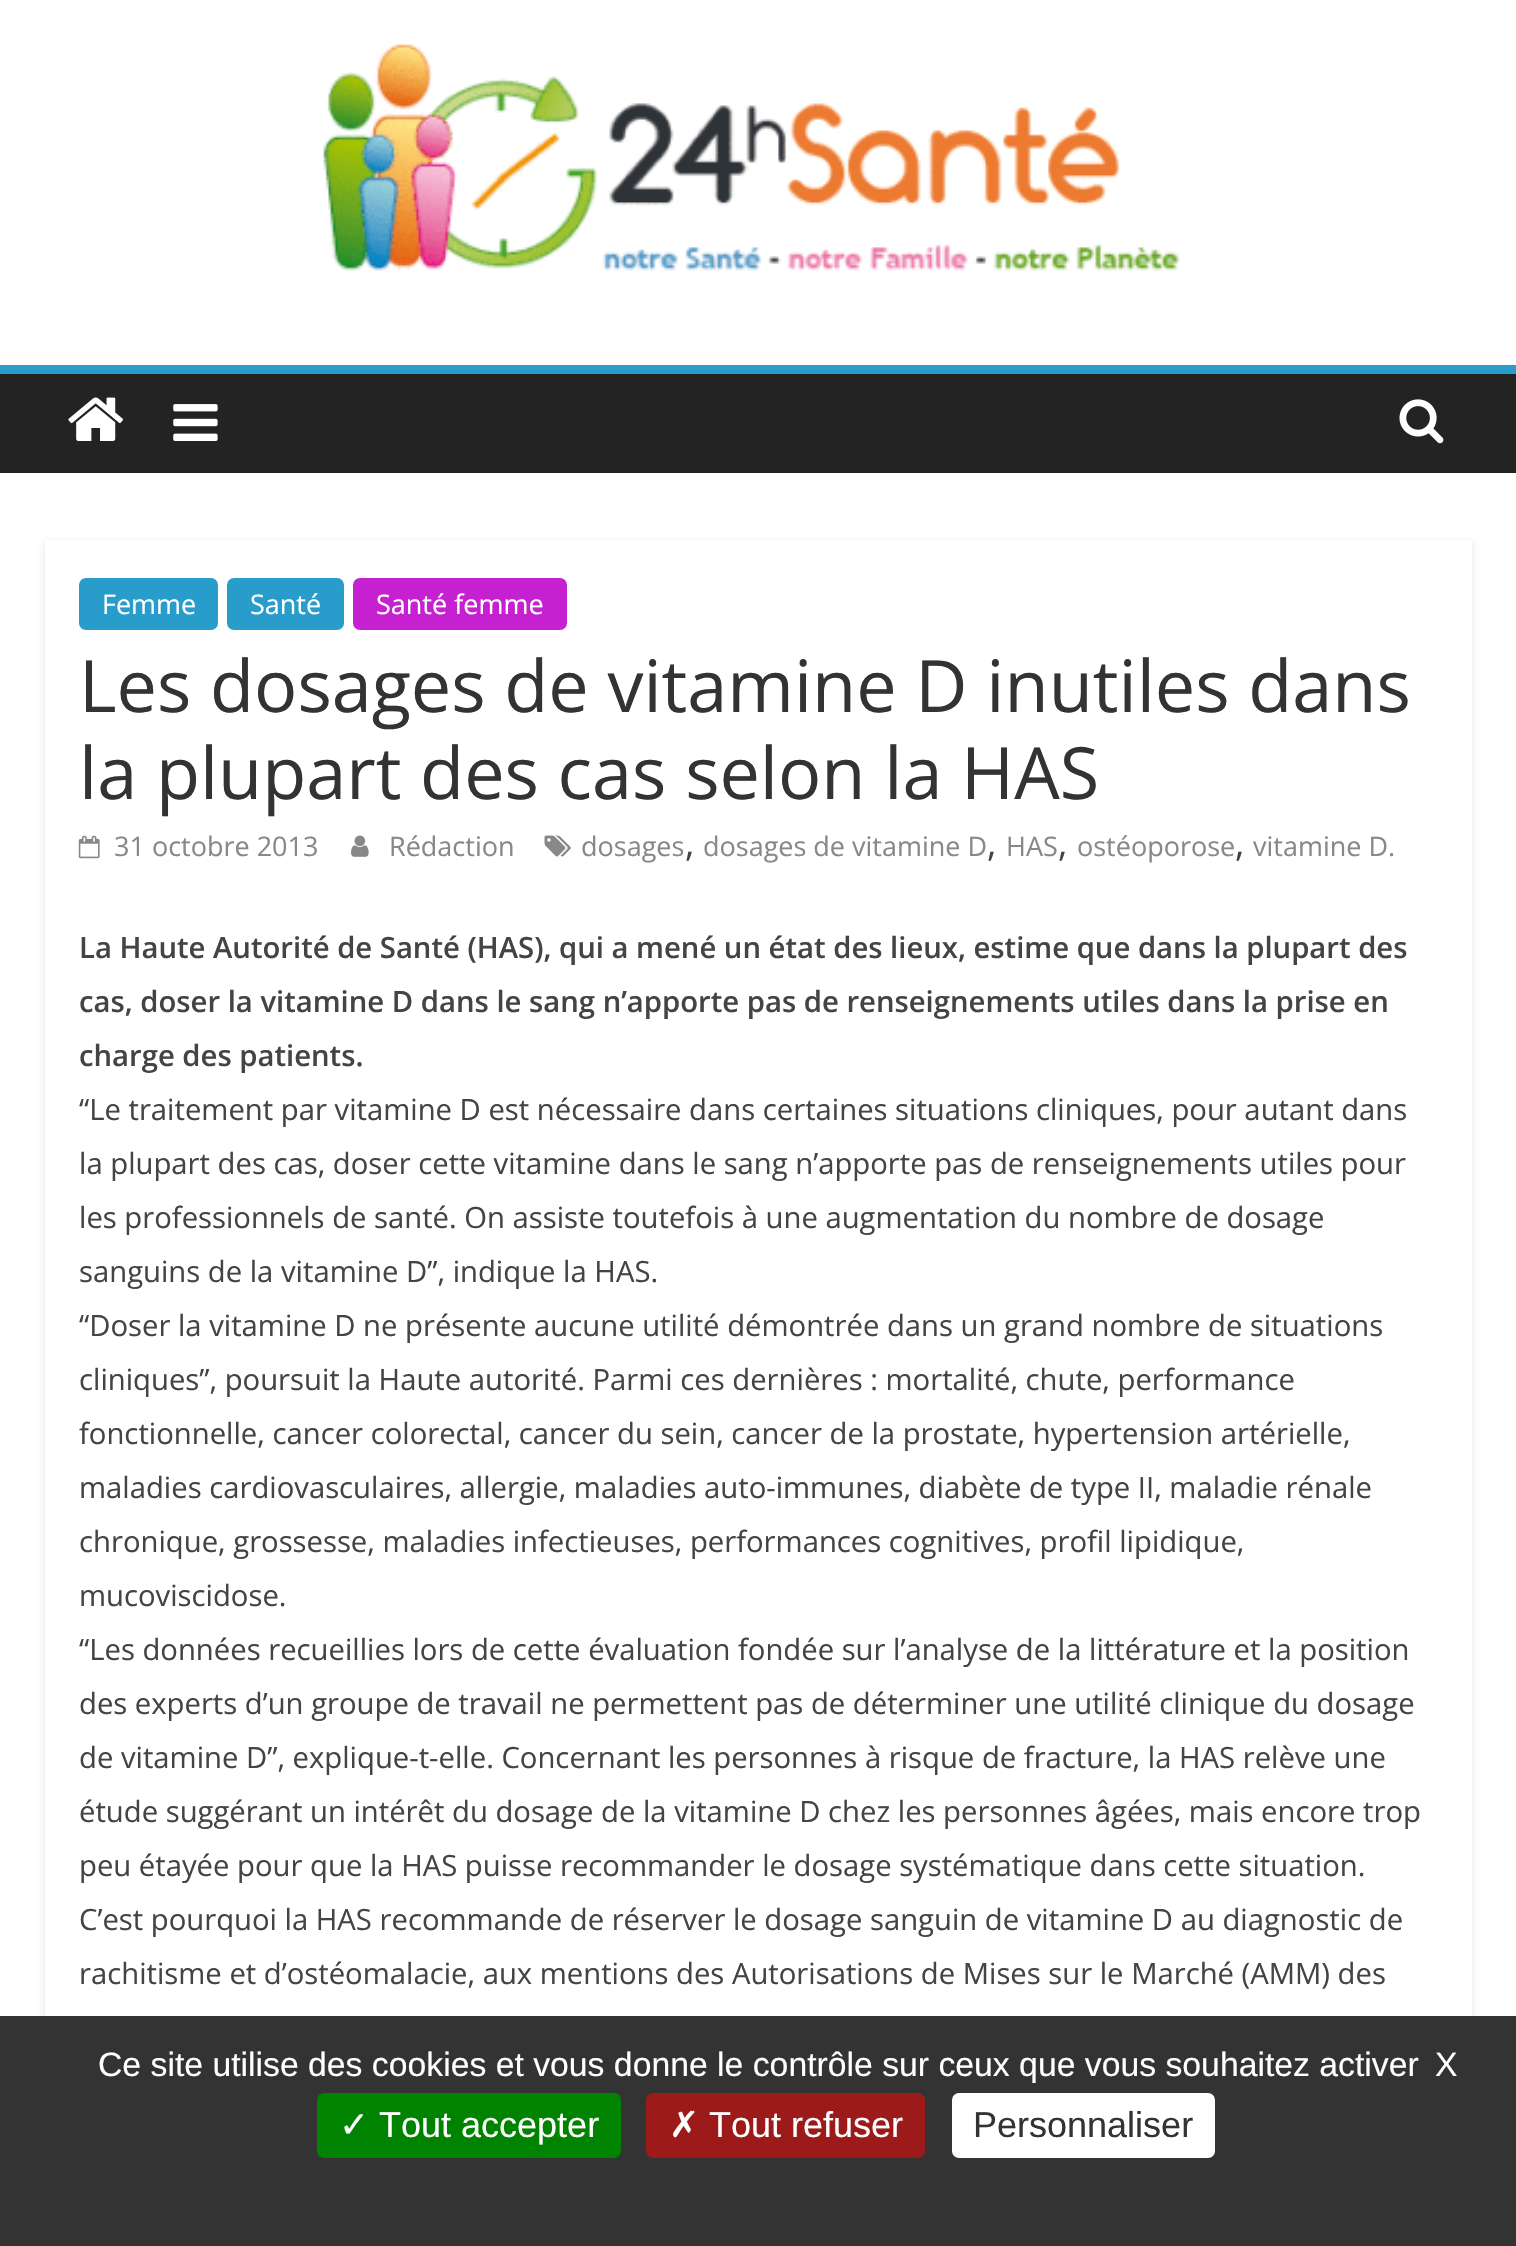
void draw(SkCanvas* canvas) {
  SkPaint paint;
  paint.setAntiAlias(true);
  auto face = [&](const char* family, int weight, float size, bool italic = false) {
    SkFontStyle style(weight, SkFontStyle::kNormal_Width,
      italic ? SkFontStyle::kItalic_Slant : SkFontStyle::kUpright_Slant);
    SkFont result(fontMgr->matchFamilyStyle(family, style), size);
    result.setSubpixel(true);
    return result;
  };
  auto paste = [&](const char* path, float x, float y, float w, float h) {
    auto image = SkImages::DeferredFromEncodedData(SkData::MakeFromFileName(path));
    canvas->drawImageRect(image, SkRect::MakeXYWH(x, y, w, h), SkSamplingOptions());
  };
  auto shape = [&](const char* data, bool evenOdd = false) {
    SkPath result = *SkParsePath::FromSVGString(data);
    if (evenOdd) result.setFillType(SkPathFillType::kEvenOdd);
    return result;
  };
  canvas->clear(0xffffffff);
  paste("img/1.png", 322, 43, 858, 229);
  paint.setColor(0xff232323);
  canvas->drawRect(SkRect::MakeXYWH(0, 374, 1516, 99), paint);
  paint.setColor(0xff289dcc);
  canvas->drawRect(SkRect::MakeXYWH(0, 365, 1516, 9), paint);
  paste("img/2.png", 68, 397, 55, 44);
  paste("img/3.png", 173, 404, 45, 37);
  paste("img/4.png", 1399, 399, 45, 45);
  canvas->save();
  canvas->clipPath(shape("M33 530H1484V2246H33ZM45 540H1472V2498H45Z", true), true);
  paint.setColor(0x1a000000);
  paint.setMaskFilter(SkMaskFilter::MakeBlur(kNormal_SkBlurStyle, 3.5f));
  canvas->drawRect(SkRect::MakeXYWH(45, 542, 1427, 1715), paint);
  paint.setMaskFilter(nullptr);
  canvas->restore();
  paint.setColor(0xff289dcc);
  canvas->drawRoundRect(SkRect::MakeXYWH(79, 578, 139, 52), 7, 7, paint);
  canvas->drawRoundRect(SkRect::MakeXYWH(227, 578, 117, 52), 7, 7, paint);
  paint.setColor(0xffc521d1);
  canvas->drawRoundRect(SkRect::MakeXYWH(353, 578, 214, 52), 7, 7, paint);
  paste("img/5.png", 78, 835, 22, 24);
  paste("img/6.png", 351, 835, 18, 22);
  paste("img/7.png", 544, 835, 27, 22);
  paint.setColor(0xff333333);
  canvas->drawRect(SkRect::MakeXYWH(0, 2016, 1516, 230), paint);
  paint.setColor(0xff008300);
  canvas->drawRoundRect(SkRect::MakeXYWH(317, 2093, 304, 65), 7, 7, paint);
  paint.setColor(0xff9c1a1a);
  canvas->drawRoundRect(SkRect::MakeXYWH(646, 2093, 279, 65), 7, 7, paint);
  paint.setColor(0xffffffff);
  canvas->drawRoundRect(SkRect::MakeXYWH(952, 2093, 263, 65), 7, 7, paint);
  auto f0 = face("Open Sans", 400, 27);
  {
    const struct { const char* s; float x, y; } items[] = {
      {"Femme", 102, 614},
      {"Santé", 250, 614},
      {"Santé femme", 376, 614},
    };
    for (auto [s, x, y] : items) {
      canvas->drawString(s, x, y, f0, paint);
    }
  }
  auto f1 = face("Open Sans", 400, 72);
  paint.setColor(0xff333333);
  canvas->drawString("Les dosages de vitamine D inutiles dans", 79, 712, f1, paint);
  canvas->drawString("la plupart des cas selon la HAS", 79, 799, f1, paint);
  paint.setColor(0xff888888);
  {
    const struct { const char* s; float x, y; } items[] = {
      {"31 octobre 2013", 114, 856},
      {"Rédaction", 389, 856},
      {"dosages", 581, 856},
    };
    for (auto [s, x, y] : items) {
      canvas->drawString(s, x, y, f0, paint);
    }
  }
  auto f2 = face("Open Sans", 400, 36);
  paint.setColor(0xff444444);
  canvas->drawString(",", 685, 856, f2, paint);
  paint.setColor(0xff888888);
  canvas->drawString("dosages de vitamine D", 703, 856, f0, paint);
  paint.setColor(0xff444444);
  canvas->drawString(",", 987, 856, f2, paint);
  paint.setColor(0xff888888);
  canvas->drawString("HAS", 1006, 856, f0, paint);
  paint.setColor(0xff444444);
  canvas->drawString(",", 1058, 856, f2, paint);
  paint.setColor(0xff888888);
  canvas->drawString("ostéoporose", 1077, 856, f0, paint);
  paint.setColor(0xff444444);
  canvas->drawString(",", 1235, 856, f2, paint);
  paint.setColor(0xff888888);
  canvas->drawString("vitamine D.", 1253, 856, f0, paint);
  auto f3 = face("Open Sans", 600, 29.25f);
  paint.setColor(0xff444444);
  {
    const struct { const char* s; float x, y; } items[] = {
      {"La Haute Autorité de Santé (HAS), qui a mené un état des lieux, estime que dans la plupart des", 79, 958},
      {"cas, doser la vitamine D dans le sang n’apporte pas de renseignements utiles dans la prise en", 79, 1012},
      {"charge des patients.", 79, 1066},
    };
    for (auto [s, x, y] : items) {
      canvas->drawString(s, x, y, f3, paint);
    }
  }
  auto f4 = face("Open Sans", 400, 29.25f);
  {
    const struct { const char* s; float x, y; } items[] = {
      {"“Le traitement par vitamine D est nécessaire dans certaines situations cliniques, pour autant dans", 79, 1120},
      {"la plupart des cas, doser cette vitamine dans le sang n’apporte pas de renseignements utiles pour", 79, 1174},
      {"les professionnels de santé. On assiste toutefois à une augmentation du nombre de dosage", 79, 1228},
      {"sanguins de la vitamine D”, indique la HAS.", 79, 1282},
      {"“Doser la vitamine D ne présente aucune utilité démontrée dans un grand nombre de situations", 79, 1336},
      {"cliniques”, poursuit la Haute autorité. Parmi ces dernières : mortalité, chute, performance", 79, 1390},
      {"fonctionnelle, cancer colorectal, cancer du sein, cancer de la prostate, hypertension artérielle,", 79, 1444},
      {"maladies cardiovasculaires, allergie, maladies auto-immunes, diabète de type II, maladie rénale", 79, 1498},
      {"chronique, grossesse, maladies infectieuses, performances cognitives, profil lipidique,", 79, 1552},
      {"mucoviscidose.", 79, 1606},
      {"“Les données recueillies lors de cette évaluation fondée sur l’analyse de la littérature et la position", 79, 1660},
      {"des experts d’un groupe de travail ne permettent pas de déterminer une utilité clinique du dosage", 79, 1714},
      {"de vitamine D”, explique-t-elle. Concernant les personnes à risque de fracture, la HAS relève une", 79, 1768},
      {"étude suggérant un intérêt du dosage de la vitamine D chez les personnes âgées, mais encore trop", 79, 1822},
      {"peu étayée pour que la HAS puisse recommander le dosage systématique dans cette situation.", 79, 1876},
      {"C’est pourquoi la HAS recommande de réserver le dosage sanguin de vitamine D au diagnostic de", 79, 1930},
      {"rachitisme et d’ostéomalacie, aux mentions des Autorisations de Mises sur le Marché (AMM) des", 79, 1984},
    };
    for (auto [s, x, y] : items) {
      canvas->drawString(s, x, y, f4, paint);
    }
  }
  auto f5 = face("Liberation Sans", 400, 33.75f);
  paint.setColor(0xffffffff);
  canvas->drawString("Ce site utilise des cookies et vous donne le contrôle sur ceux que vous souhaitez activer", 98, 2076, f5, paint);
  canvas->drawString("X", 1435, 2076, f5, paint);
  auto f6 = face("DejaVu Sans", 400, 36);
  canvas->drawString("✓", 339, 2137, f6, paint);
  auto f7 = face("Liberation Sans", 400, 36);
  canvas->drawString("Tout accepter", 379, 2137, f7, paint);
  canvas->drawString("✗", 669, 2137, f6, paint);
  canvas->drawString("Tout refuser", 709, 2137, f7, paint);
  paint.setColor(0xff333333);
  canvas->drawString("Personnaliser", 973, 2137, f7, paint);
}
